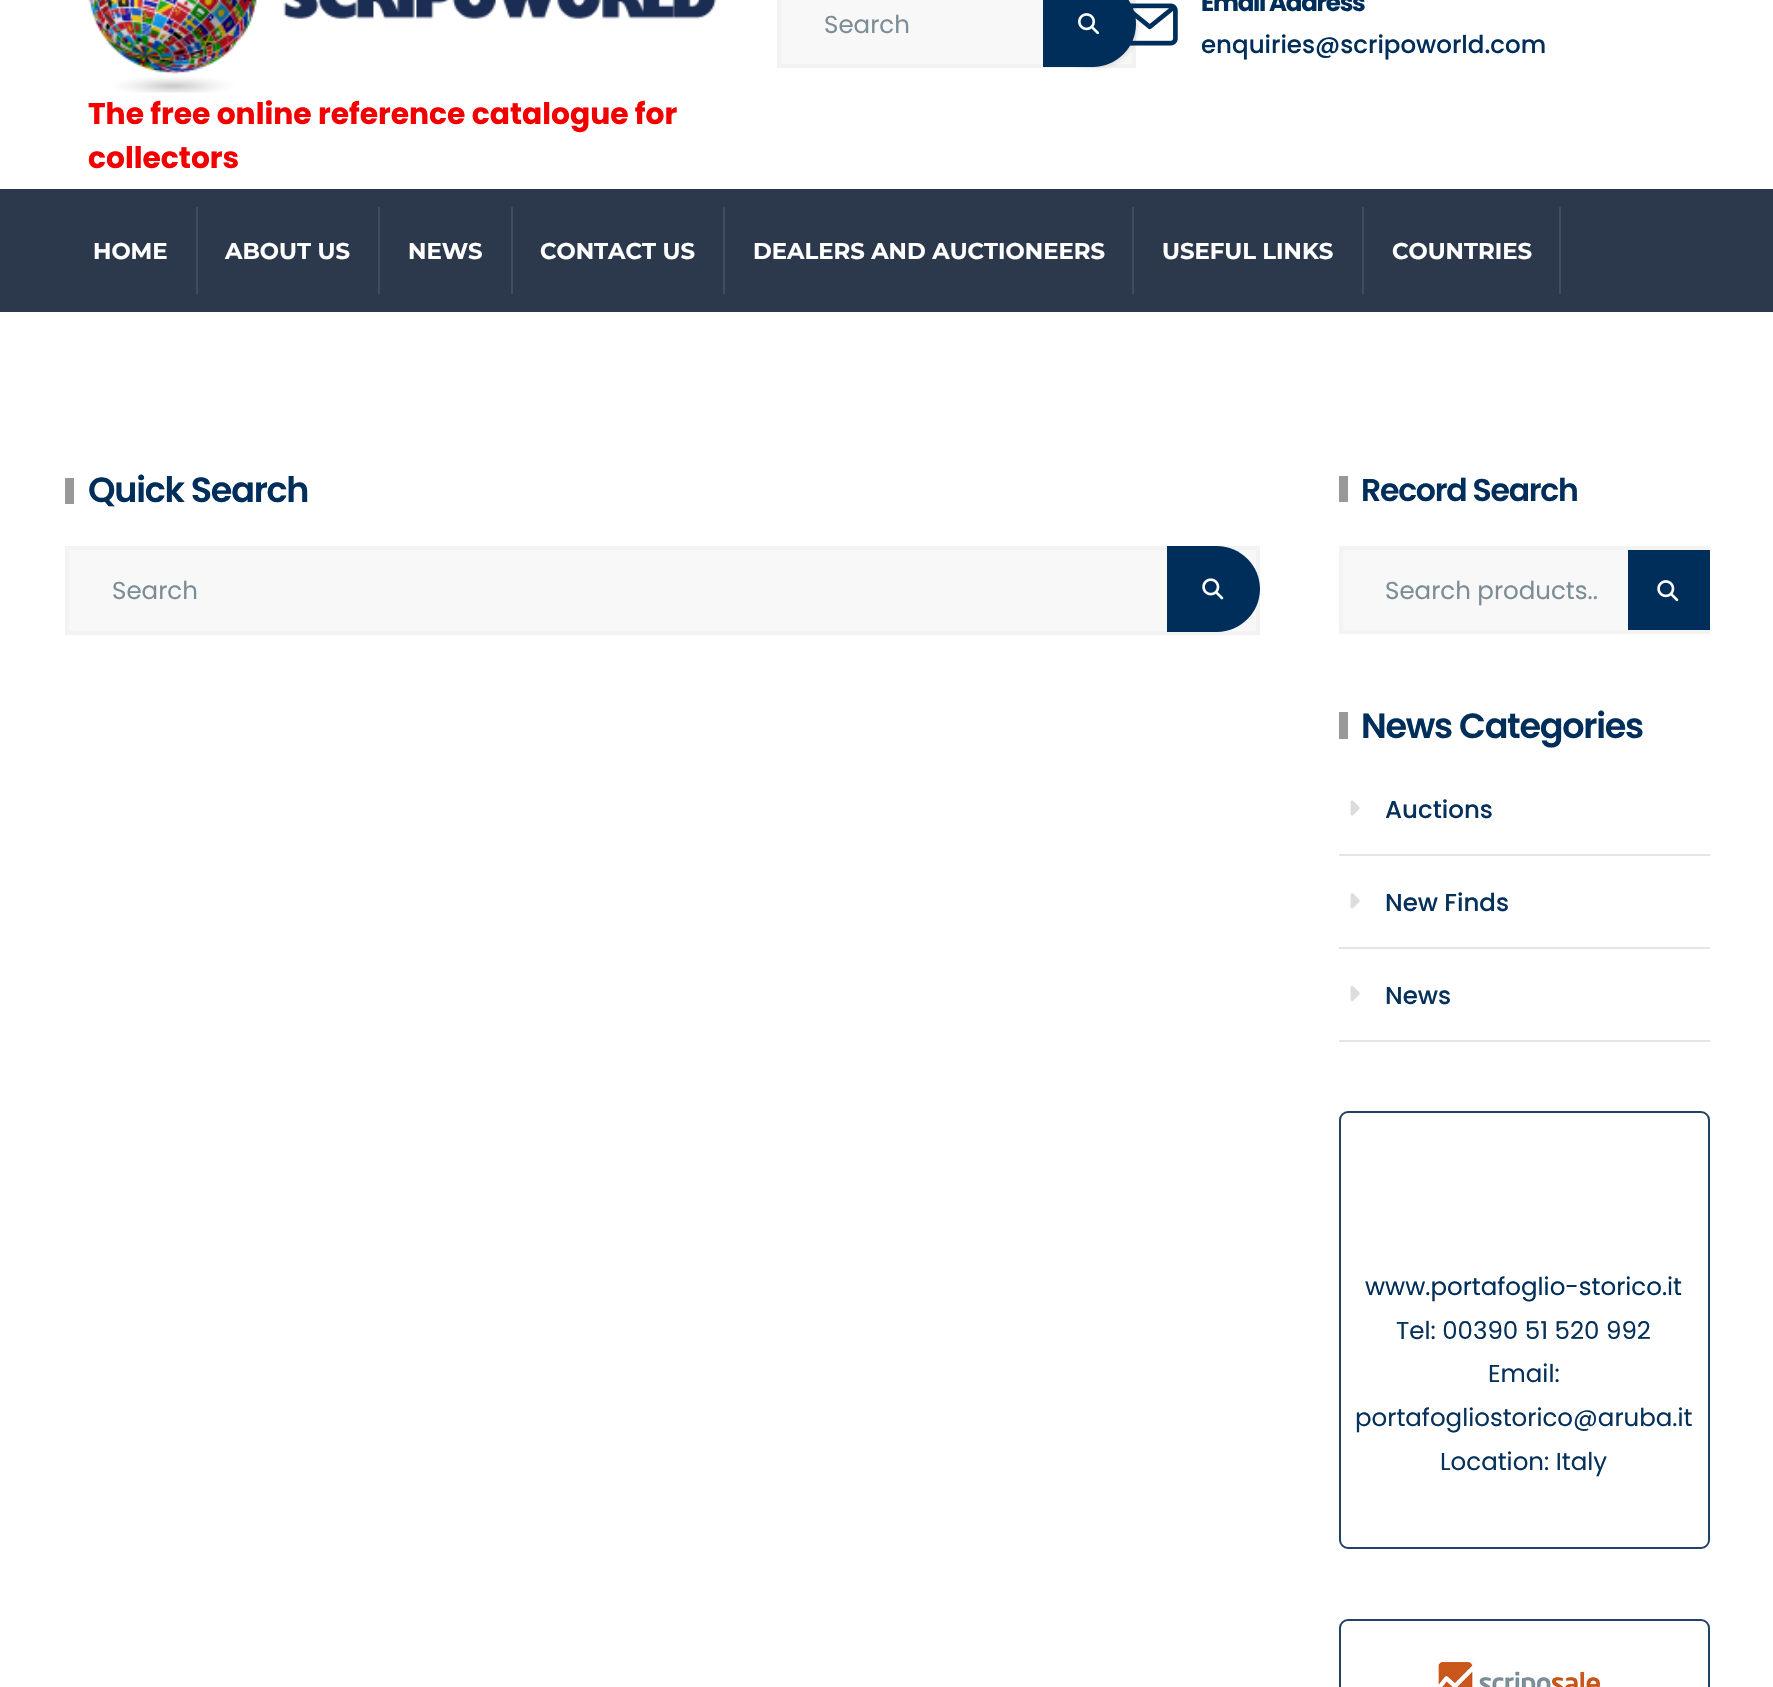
void draw(SkCanvas* canvas) {
  SkPaint paint;
  paint.setAntiAlias(true);
  auto face = [&](const char* family, int weight, float size, bool italic = false) {
    SkFontStyle style(weight, SkFontStyle::kNormal_Width,
      italic ? SkFontStyle::kItalic_Slant : SkFontStyle::kUpright_Slant);
    SkFont result(fontMgr->matchFamilyStyle(family, style), size);
    result.setSubpixel(true);
    return result;
  };
  auto writeSpaced = [&](const char* s, float x, float y, const SkFont& font, const SkPaint& ink, float letter, float word) {
    std::vector<SkGlyphID> glyphs(font.countText(s, strlen(s), SkTextEncoding::kUTF8));
    std::vector<float> xs(glyphs.size());
    font.textToGlyphs(s, strlen(s), SkTextEncoding::kUTF8, glyphs);
    font.getXPos(glyphs, xs, x);
    float extra = 0;
    for (size_t i = 0; i < glyphs.size(); i++) {
      xs[i] += extra;
      extra += letter + word * (glyphs[i] == font.unicharToGlyph(' '));
    }
    canvas->drawTextBlob(SkTextBlob::MakeFromPosHGlyphs(glyphs, xs, y, font), 0, 0, ink);
  };
  auto paste = [&](const char* path, float x, float y, float w, float h) {
    auto image = SkImages::DeferredFromEncodedData(SkData::MakeFromFileName(path));
    canvas->drawImageRect(image, SkRect::MakeXYWH(x, y, w, h), SkSamplingOptions());
  };
  auto shape = [&](const char* data, bool evenOdd = false) {
    SkPath result = *SkParsePath::FromSVGString(data);
    if (evenOdd) result.setFillType(SkPathFillType::kEvenOdd);
    return result;
  };
  canvas->clear(0xffffffff);
  paint.setColor(0xfff8f8f9);
  canvas->drawRect(SkRect::MakeXYWH(779, -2, 355, 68), paint);
  paint.setStroke(true);
  paint.setStrokeWidth(4);
  paint.setColor(0xfff3f3f3);
  canvas->drawRect(SkRect::MakeXYWH(779, -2, 355, 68), paint);
  paint.setStroke(false);
  paint.setColor(0x1a000000);
  paint.setMaskFilter(SkMaskFilter::MakeBlur(kNormal_SkBlurStyle, 2));
  canvas->drawRoundRect(SkRect::MakeXYWH(1045, -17, 93, 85), 42.5f, 42.5f, paint);
  paint.setMaskFilter(nullptr);
  paint.setColor(0xff002e5b);
  canvas->drawPath(shape("M1043-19H1093C1116.5-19 1136 .5 1136 24C1136 47.5 1116.5 67 1093 67H1043Z"), paint);
  paste("img/1.png", 1078, 13, 21, 22);
  paste("img/2.png", 1130, 3, 48, 43);
  paste("img/3.png", 88, 0, 629, 93);
  {
    const struct { float x, y, w, h; SkColor color; } items[] = {
      {0, 189, 1773, 123, 0xff2c394c},
      {196, 207, 2, 87, 0xff414d5e},
      {378, 207, 2, 87, 0xff414d5e},
      {511, 207, 2, 87, 0xff414d5e},
      {723, 207, 2, 87, 0xff414d5e},
      {1132, 207, 2, 87, 0xff414d5e},
      {1362, 207, 2, 87, 0xff414d5e},
      {1559, 207, 2, 87, 0xff414d5e},
      {65, 478, 9, 26, 0xff989898},
    };
    for (auto [x, y, w, h, color] : items) {
      paint.setColor(color);
      canvas->drawRect(SkRect::MakeXYWH(x, y, w, h), paint);
    }
  }
  paint.setColor(0xfff8f8f9);
  canvas->drawRect(SkRect::MakeXYWH(67, 548, 1191, 85), paint);
  paint.setStroke(true);
  paint.setColor(0xfff3f3f3);
  canvas->drawRect(SkRect::MakeXYWH(67, 548, 1191, 85), paint);
  paint.setStroke(false);
  paint.setColor(0xff002e5b);
  canvas->drawPath(shape("M1167 546H1217C1240.5 546 1260 565.5 1260 589C1260 612.5 1240.5 632 1217 632H1167Z"), paint);
  paste("img/4.png", 1202, 578, 22, 22);
  paint.setColor(0xff989898);
  canvas->drawRect(SkRect::MakeXYWH(1339, 476, 9, 26), paint);
  paint.setColor(0xfff8f8f9);
  canvas->drawRect(SkRect::MakeXYWH(1343, 550, 285, 80), paint);
  paint.setStroke(true);
  paint.setColor(0xfff3f3f3);
  canvas->drawRect(SkRect::MakeXYWH(1341, 548, 367, 84), paint);
  paint.setStroke(false);
  paint.setColor(0xff002e5b);
  canvas->drawRect(SkRect::MakeXYWH(1628, 550, 82, 80), paint);
  paste("img/5.png", 1657, 580, 22, 22);
  paint.setColor(0xff989898);
  canvas->drawRect(SkRect::MakeXYWH(1339, 712, 9, 27), paint);
  paint.setColor(0xffe5e5e5);
  canvas->drawRect(SkRect::MakeXYWH(1339, 854, 371, 2), paint);
  paste("img/6.png", 1350, 800, 10, 16);
  canvas->drawRect(SkRect::MakeXYWH(1339, 947, 371, 2), paint);
  paste("img/7.png", 1350, 893, 10, 16);
  canvas->drawRect(SkRect::MakeXYWH(1339, 1040, 371, 2), paint);
  paste("img/8.png", 1350, 986, 10, 16);
  paint.setStroke(true);
  paint.setStrokeWidth(2);
  paint.setColor(0xff234165);
  canvas->drawRoundRect(SkRect::MakeXYWH(1340, 1112, 369, 436), 8, 8, paint);
  canvas->drawRoundRect(SkRect::MakeXYWH(1340, 1620, 369, 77), 8, 8, paint);
  paste("img/9.png", 1437, 1659, 164, 28);
  auto f0 = face("Poppins", 400, 24.5f);
  paint.setStroke(false);
  paint.setColor(0xff7c8d98);
  canvas->drawString("Search", 824, 33, f0, paint);
  auto f1 = face("Poppins", 700, 24.5f);
  paint.setColor(0xff002e5b);
  writeSpaced("Email Address", 1201, 11, f1, paint, -1.25f, 0);
  auto f2 = face("Poppins", 500, 24.5f);
  canvas->drawString("enquiries@scripoworld.com", 1201, 53, f2, paint);
  auto f3 = face("Poppins", 700, 29.75f);
  paint.setColor(0xfff20000);
  canvas->drawString("The free online reference catalogue for", 88, 124, f3, paint);
  canvas->drawString("collectors", 88, 168, f3, paint);
  auto f4 = face("Montserrat", 700, 22.75f);
  paint.setColor(0xffffffff);
  {
    const struct { const char* s; float x, y; } items[] = {
      {"HOME", 93, 259},
      {"ABOUT US", 225, 259},
      {"NEWS", 408, 259},
      {"CONTACT US", 540, 259},
      {"DEALERS AND AUCTIONEERS", 753, 259},
      {"USEFUL LINKS", 1162, 259},
      {"COUNTRIES", 1392, 259},
    };
    for (auto [s, x, y] : items) {
      canvas->drawString(s, x, y, f4, paint);
    }
  }
  auto f5 = face("Poppins", 600, 35);
  paint.setColor(0xff002e5b);
  writeSpaced("Quick Search", 88, 502, f5, paint, -1.25f, 0);
  paint.setColor(0xff7c8d98);
  canvas->drawString("Search", 112, 599, f0, paint);
  auto f6 = face("Poppins", 600, 31.5f);
  paint.setColor(0xff002e5b);
  writeSpaced("Record Search", 1361, 501, f6, paint, -1.25f, 0);
  paint.setColor(0xff7c8d98);
  canvas->drawString("Search products..", 1385, 599, f0, paint);
  paint.setColor(0xff002e5b);
  writeSpaced("News Categories", 1361, 738, f5, paint, -1.25f, 0);
  paint.setColor(0xff06315b);
  {
    const struct { const char* s; float x, y; } items[] = {
      {"Auctions", 1385, 818},
      {"New Finds", 1385, 911},
      {"News", 1385, 1004},
    };
    for (auto [s, x, y] : items) {
      canvas->drawString(s, x, y, f2, paint);
    }
  }
  paint.setColor(0xff002e5b);
  canvas->drawString("www.portafoglio-storico.it", 1365, 1295, f0, paint);
  paint.setColor(0xff06315b);
  {
    const struct { const char* s; float x, y; } items[] = {
      {"Tel: 00390 51 520 992", 1396, 1339},
      {"Email:", 1488, 1382},
      {"portafogliostorico@aruba.it", 1355, 1426},
      {"Location: Italy", 1440, 1470},
    };
    for (auto [s, x, y] : items) {
      canvas->drawString(s, x, y, f0, paint);
    }
  }
}
